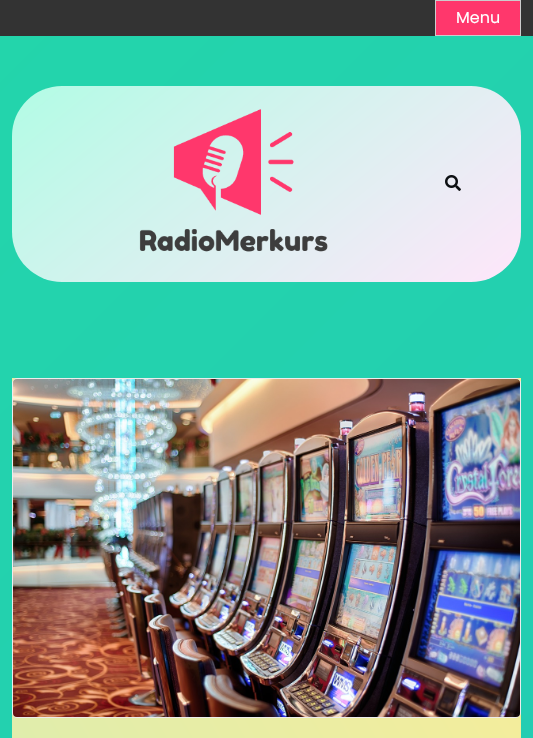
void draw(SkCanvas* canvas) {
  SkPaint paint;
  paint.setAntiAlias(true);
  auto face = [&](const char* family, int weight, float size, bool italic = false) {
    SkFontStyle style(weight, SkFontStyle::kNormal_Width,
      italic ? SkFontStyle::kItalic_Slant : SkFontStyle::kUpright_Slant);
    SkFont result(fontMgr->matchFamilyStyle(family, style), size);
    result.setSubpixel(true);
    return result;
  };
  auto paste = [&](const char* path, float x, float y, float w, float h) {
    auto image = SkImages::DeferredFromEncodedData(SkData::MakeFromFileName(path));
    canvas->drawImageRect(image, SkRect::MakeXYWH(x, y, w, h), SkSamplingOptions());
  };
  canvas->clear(0xffffffff);
  {
    const SkColor colors[] = {0xffee7752, 0xffe73c7e, 0xff23a6d5, 0xff23d5ab};
    const float stops[] = {0, 0.33f, 0.67f, 1};
    const SkPoint ends[] = {{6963, 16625}, {-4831, 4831}};
    paint.setShader(SkGradientShader::MakeLinear(ends, colors, stops, 4, SkTileMode::kClamp));
    paint.setAlpha(255);
  }
  canvas->drawRect(SkRect::MakeXYWH(0, 36, 533, 702), paint);
  paint.setShader(nullptr);
  paint.setColor(0xff333333);
  canvas->drawRect(SkRect::MakeXYWH(0, 0, 533, 36), paint);
  paint.setColor(0xffff376c);
  canvas->drawRect(SkRect::MakeXYWH(435.5f, 0.5f, 85, 35), paint);
  paint.setStroke(true);
  paint.setStrokeWidth(1);
  paint.setColor(0xffcccccc);
  canvas->drawRect(SkRect::MakeXYWH(435.5f, 0.5f, 85, 35), paint);
  paint.setStroke(false);
  {
    const SkColor colors[] = {0xffb2fce5, 0xffffe6fa};
    const float stops[] = {0, 1};
    const SkPoint ends[] = {{118, 0.3f}, {415, 368}};
    paint.setShader(SkGradientShader::MakeLinear(ends, colors, stops, 2, SkTileMode::kClamp));
    paint.setAlpha(255);
  }
  canvas->drawRoundRect(SkRect::MakeXYWH(12, 86, 509, 196), 50, 50, paint);
  paste("img/1.png", 139, 109, 189, 143);
  paste("img/2.png", 445, 175, 16, 16);
  {
    const SkColor colors[] = {0xffabecd6, 0xfffbed96};
    const float stops[] = {0, 1};
    const SkPoint ends[] = {{-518, 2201}, {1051, 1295}};
    paint.setShader(SkGradientShader::MakeLinear(ends, colors, stops, 2, SkTileMode::kClamp));
    paint.setAlpha(255);
  }
  canvas->drawRect(SkRect::MakeXYWH(12, 378, 509, 360), paint);
  paint.setStroke(true);
  paint.setShader(nullptr);
  paint.setColor(0xffededed);
  canvas->drawRoundRect(SkRect::MakeXYWH(12.5f, 378.5f, 508, 339), 4.5f, 4.5f, paint);
  paste("img/3.png", 13, 379, 507, 338);
  auto f0 = face("Poppins", 400, 16);
  paint.setStroke(false);
  paint.setColor(0xffffffff);
  canvas->drawString("Menu", 456, 23, f0, paint);
}
